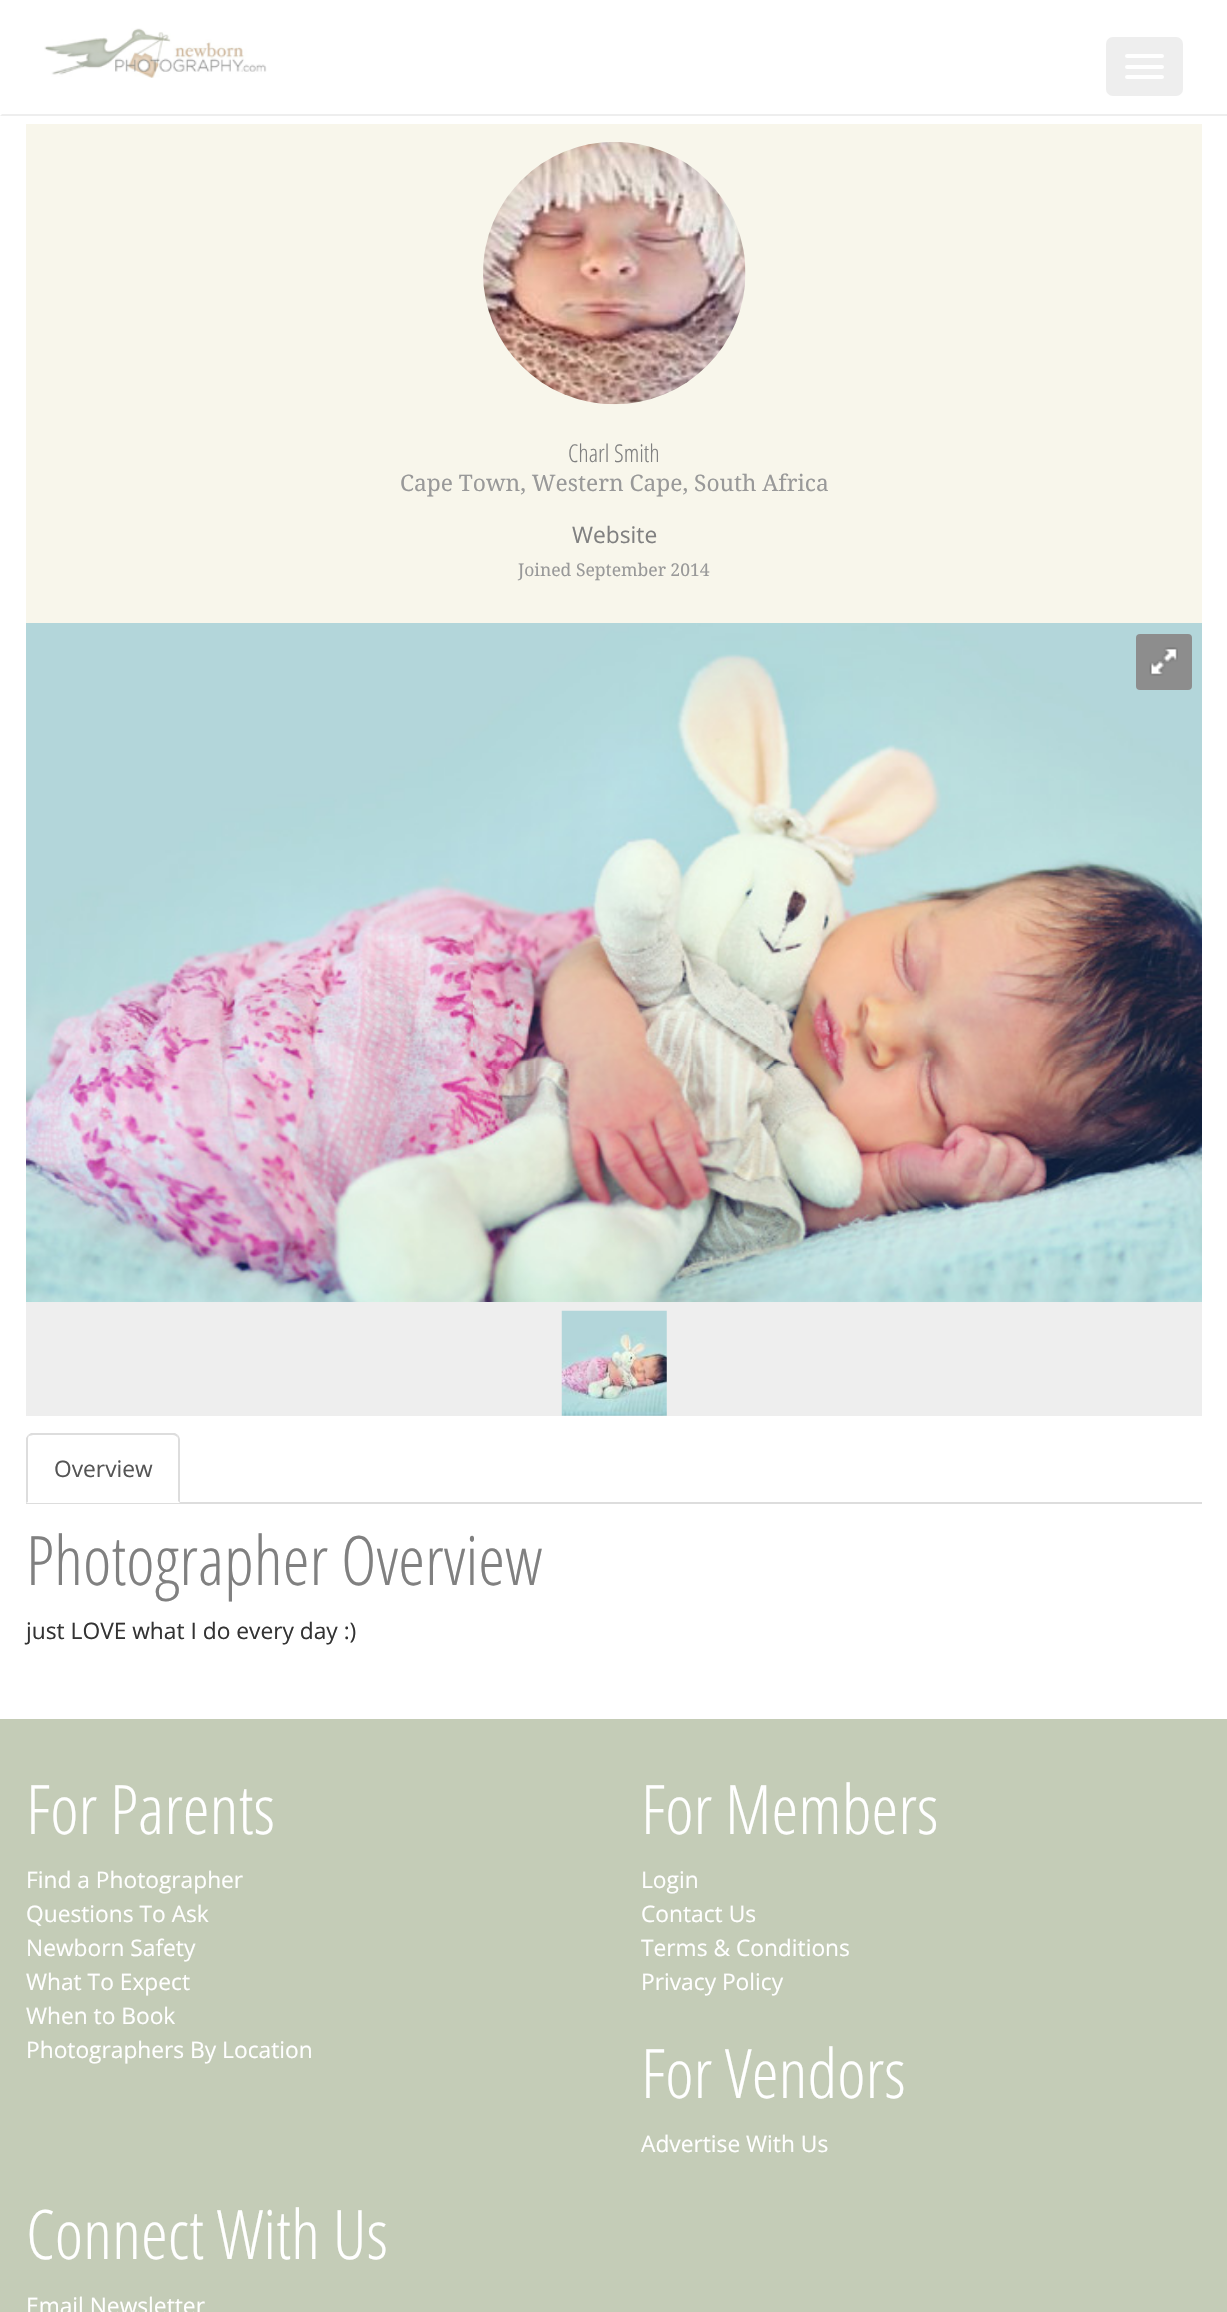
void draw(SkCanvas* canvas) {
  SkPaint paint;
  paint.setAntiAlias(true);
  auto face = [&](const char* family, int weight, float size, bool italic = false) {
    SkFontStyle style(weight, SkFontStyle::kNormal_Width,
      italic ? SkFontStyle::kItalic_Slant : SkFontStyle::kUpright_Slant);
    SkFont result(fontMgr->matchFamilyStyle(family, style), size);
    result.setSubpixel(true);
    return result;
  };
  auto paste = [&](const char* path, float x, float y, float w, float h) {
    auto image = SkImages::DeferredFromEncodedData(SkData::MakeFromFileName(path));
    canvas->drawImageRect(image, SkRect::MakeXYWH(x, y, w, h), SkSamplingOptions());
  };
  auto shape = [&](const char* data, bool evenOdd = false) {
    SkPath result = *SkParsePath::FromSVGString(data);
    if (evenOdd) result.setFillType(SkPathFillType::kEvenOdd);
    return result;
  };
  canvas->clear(0xffffffff);
  paint.setColor(0xffeeeeee);
  canvas->drawPath(shape("M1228 116H0L2 114H1227Z"), paint);
  paste("img/1.png", 44, 28, 223, 50);
  canvas->drawRoundRect(SkRect::MakeXYWH(1106, 37, 77, 59), 7, 7, paint);
  paint.setColor(0xffffffff);
  canvas->drawRoundRect(SkRect::MakeXYWH(1125, 54, 39, 4), 2, 2, paint);
  canvas->drawRoundRect(SkRect::MakeXYWH(1125, 65, 39, 4), 2, 2, paint);
  canvas->drawRoundRect(SkRect::MakeXYWH(1125, 75, 39, 4), 2, 2, paint);
  paint.setColor(0xfff8f6eb);
  canvas->drawRect(SkRect::MakeXYWH(26, 124, 1176, 499), paint);
  paste("img/2.png", 483, 142, 263, 263);
  paint.setColor(0xffeeeeee);
  canvas->drawRect(SkRect::MakeXYWH(26, 1302, 1176, 114), paint);
  paste("img/3.png", 26, 623, 1176, 679);
  paint.setColor(0xff8d8d8d);
  canvas->drawRoundRect(SkRect::MakeXYWH(1136, 634, 56, 56), 4, 4, paint);
  paste("img/4.png", 1149, 647, 29, 29);
  paste("img/5.png", 561, 1310, 106, 106);
  paint.setColor(0xffdddddd);
  canvas->drawRect(SkRect::MakeXYWH(26, 1502, 1176, 2), paint);
  paint.setColor(0xffffffff);
  canvas->drawPath(shape("M33 1433H173C177 1433 180 1436 180 1440V1503H26V1440C26 1436 29 1433 33 1433Z"), paint);
  paint.setColor(0xffdddddd);
  canvas->drawPath(shape("M33 1435C32 1435 30 1436 29 1436L28 1435L31 1433H175L178 1435L177 1437C176 1436 175 1435 173 1435Z"), paint);
  canvas->drawPath(shape("M178 1435C179 1436 180 1438 180 1440V1503L178 1501V1440C178 1439 178 1437 177 1437Z"), paint);
  canvas->drawPath(shape("M26 1438L28 1435L29 1436C28 1437 28 1438 28 1440V1502L26 1503Z"), paint);
  paint.setColor(0xffc4ccb7);
  canvas->drawRect(SkRect::MakeXYWH(0, 1719, 1227, 593), paint);
  auto f0 = face("Open Sans Condensed", 300, 24.5f);
  paint.setColor(0xff808080);
  canvas->drawString("Charl Smith", 568, 462, f0, paint);
  auto f1 = face("Droid Serif", 400, 22.75f);
  paint.setColor(0xff999999);
  canvas->drawString("Cape Town, Western Cape, South Africa", 400, 491, f1, paint);
  auto f2 = face("Open Sans", 400, 22.75f);
  paint.setColor(0xff808080);
  canvas->drawString("Website", 572, 543, f2, paint);
  auto f3 = face("Droid Serif", 400, 17.5f);
  paint.setColor(0xff999999);
  canvas->drawString("Joined September 2014", 518, 576, f3, paint);
  paint.setColor(0xff555555);
  canvas->drawString("Overview", 54, 1477, f2, paint);
  auto f4 = face("Open Sans Condensed", 300, 68.25f);
  paint.setColor(0xff808080);
  canvas->drawString("Photographer Overview", 26, 1585, f4, paint);
  paint.setColor(0xff333333);
  canvas->drawString("just LOVE what I do every day :)", 26, 1639, f2, paint);
  paint.setColor(0xffffffff);
  canvas->drawString("For Parents", 26, 1834, f4, paint);
  {
    const struct { const char* s; float x, y; } items[] = {
      {"Find a Photographer", 26, 1888},
      {"Questions To Ask", 26, 1922},
      {"Newborn Safety", 26, 1956},
      {"What To Expect", 26, 1990},
      {"When to Book", 26, 2024},
      {"Photographers By Location", 26, 2058},
    };
    for (auto [s, x, y] : items) {
      canvas->drawString(s, x, y, f2, paint);
    }
  }
  canvas->drawString("For Members", 641, 1834, f4, paint);
  {
    const struct { const char* s; float x, y; } items[] = {
      {"Login", 641, 1888},
      {"Contact Us", 641, 1922},
      {"Terms & Conditions", 641, 1956},
      {"Privacy Policy", 641, 1990},
    };
    for (auto [s, x, y] : items) {
      canvas->drawString(s, x, y, f2, paint);
    }
  }
  canvas->drawString("For Vendors", 641, 2098, f4, paint);
  canvas->drawString("Advertise With Us", 641, 2152, f2, paint);
  canvas->drawString("Connect With Us", 26, 2259, f4, paint);
  canvas->drawString("Email Newsletter", 26, 2314, f2, paint);
}
